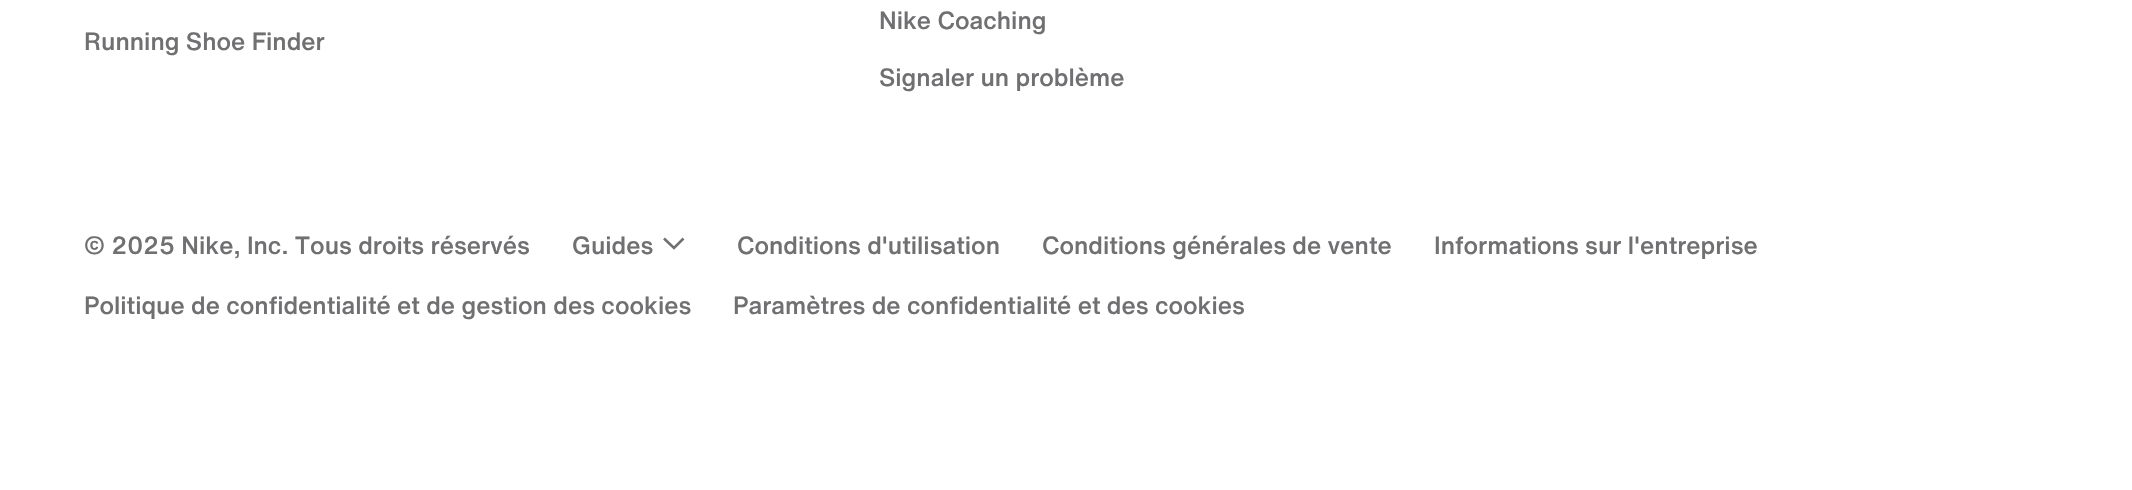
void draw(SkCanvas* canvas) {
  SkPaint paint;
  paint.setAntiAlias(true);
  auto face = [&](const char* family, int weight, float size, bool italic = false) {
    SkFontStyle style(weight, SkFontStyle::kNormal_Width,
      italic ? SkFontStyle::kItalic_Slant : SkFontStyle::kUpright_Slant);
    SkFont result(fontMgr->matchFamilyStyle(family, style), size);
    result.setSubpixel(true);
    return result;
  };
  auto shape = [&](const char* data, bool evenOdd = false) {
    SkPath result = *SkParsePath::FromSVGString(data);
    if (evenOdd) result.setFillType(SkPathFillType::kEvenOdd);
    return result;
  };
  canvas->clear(0xffffffff);
  paint.setStroke(true);
  paint.setStrokeWidth(2.6f);
  paint.setColor(0xff707072);
  canvas->drawPath(shape("M683.5 238.5L674 248L664 238.5"), paint);
  auto f0 = face("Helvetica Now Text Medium", 500, 24.5f);
  paint.setStroke(false);
  {
    const struct { const char* s; float x, y; } items[] = {
      {"Running Shoe Finder", 84, 50},
      {"Nike Coaching", 879, 29},
      {"Signaler un problème", 879, 86},
      {"© 2025 Nike, Inc. Tous droits réservés", 84, 254},
      {"Guides", 572, 254},
      {"Conditions d'utilisation", 737, 254},
      {"Conditions générales de vente", 1042, 254},
      {"Informations sur l'entreprise", 1434, 254},
      {"Politique de confidentialité et de gestion des cookies", 84, 314},
      {"Paramètres de confidentialité et des cookies", 733, 314},
    };
    for (auto [s, x, y] : items) {
      canvas->drawString(s, x, y, f0, paint);
    }
  }
}
